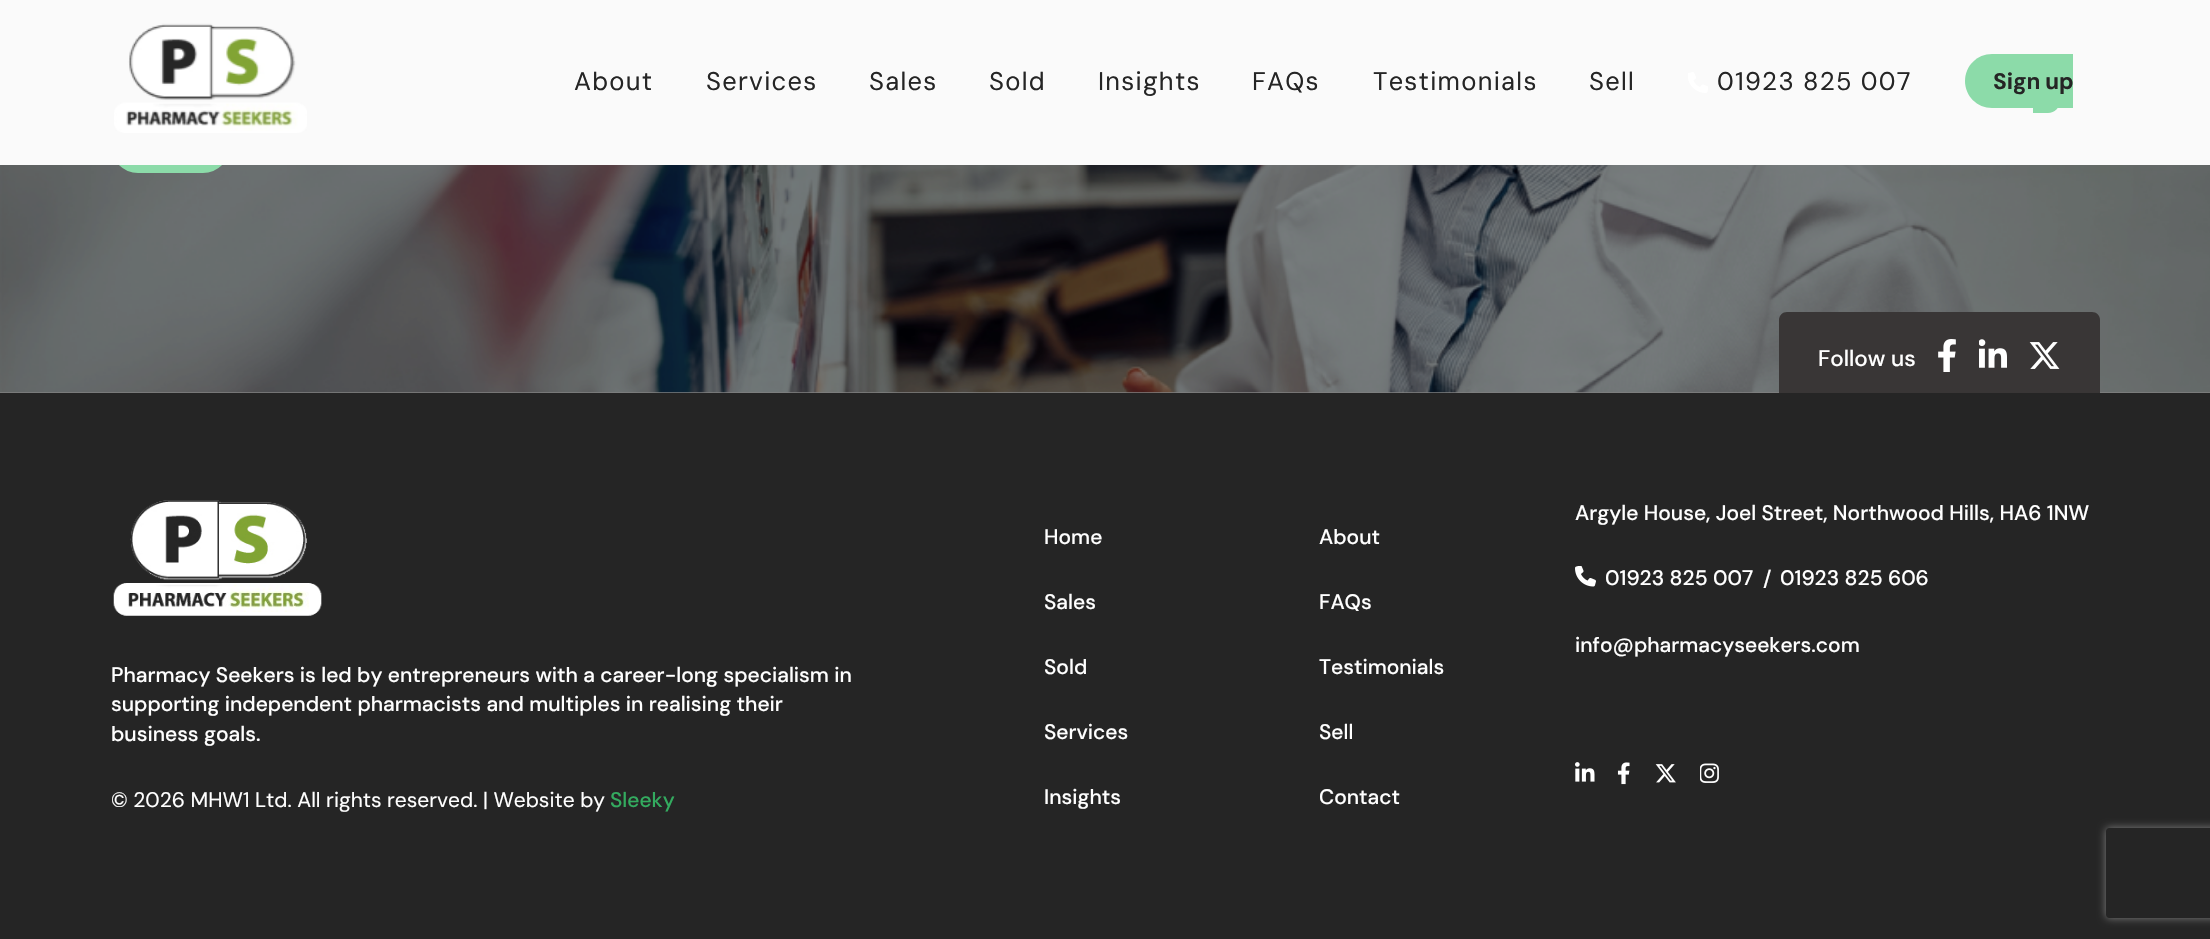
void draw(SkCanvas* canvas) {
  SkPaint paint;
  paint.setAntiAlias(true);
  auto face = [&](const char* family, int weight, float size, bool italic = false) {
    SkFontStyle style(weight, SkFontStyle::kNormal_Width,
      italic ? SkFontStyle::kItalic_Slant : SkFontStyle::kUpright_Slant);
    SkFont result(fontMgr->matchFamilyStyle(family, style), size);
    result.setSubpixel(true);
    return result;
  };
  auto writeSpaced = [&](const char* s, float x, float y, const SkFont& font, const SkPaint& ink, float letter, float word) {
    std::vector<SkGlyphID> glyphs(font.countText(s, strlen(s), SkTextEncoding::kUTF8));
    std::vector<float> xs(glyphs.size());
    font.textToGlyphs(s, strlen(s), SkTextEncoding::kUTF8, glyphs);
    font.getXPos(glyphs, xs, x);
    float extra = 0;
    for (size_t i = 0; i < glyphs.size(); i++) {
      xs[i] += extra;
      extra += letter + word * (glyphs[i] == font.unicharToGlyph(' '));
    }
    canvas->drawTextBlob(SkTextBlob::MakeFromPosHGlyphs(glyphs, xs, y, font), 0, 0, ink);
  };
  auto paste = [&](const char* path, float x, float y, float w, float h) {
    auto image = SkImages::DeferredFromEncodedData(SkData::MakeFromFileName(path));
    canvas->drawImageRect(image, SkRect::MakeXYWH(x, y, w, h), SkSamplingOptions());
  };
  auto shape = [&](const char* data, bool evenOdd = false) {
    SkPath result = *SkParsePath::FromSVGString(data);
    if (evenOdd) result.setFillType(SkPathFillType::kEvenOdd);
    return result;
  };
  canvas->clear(0xff808080);
  paste("img/3.png", 0, 165, 2210, 228);
  paint.setColor(0xff8cdba9);
  canvas->drawRoundRect(SkRect::MakeXYWH(111, 119, 119, 54), 27, 27, paint);
  paint.setColor(0xfffafafa);
  canvas->drawRect(SkRect::MakeXYWH(0, 0, 2210, 165), paint);
  paste("img/1.png", 114, 23, 193, 110);
  paste("img/2.png", 1688, 72, 20, 21);
  paint.setColor(0xff8cdba9);
  canvas->drawPath(shape("M1992 54H2073V108H1992C1977 108 1965 96 1965 81C1965 66 1977 54 1992 54Z"), paint);
  canvas->drawPath(shape("M2033 89H2048C2054.5 89 2060 94.5 2060 101C2060 107.5 2054.5 113 2048 113H2033Z"), paint);
  paint.setColor(0xff393636);
  canvas->drawPath(shape("M1787 312H2092C2096.5 312 2100 315.5 2100 320V393H1779V320C1779 315.5 1782.5 312 1787 312Z"), paint);
  paste("img/4.png", 1938, 339, 18, 33);
  paste("img/5.png", 1979, 339, 28, 29);
  paste("img/6.png", 2029, 342, 31, 27);
  paint.setColor(0xff252525);
  canvas->drawRect(SkRect::MakeXYWH(0, 393, 2210, 546), paint);
  paste("img/7.png", 113, 500, 209, 116);
  paste("img/8.png", 1575, 566, 21, 21);
  paste("img/9.png", 1575, 762, 20, 20);
  paste("img/10.png", 1617, 762, 13, 23);
  paste("img/11.png", 1655, 764, 21, 19);
  paste("img/12.png", 1700, 763, 19, 20);
  canvas->save();
  canvas->clipPath(shape("M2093 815H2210V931H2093ZM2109 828H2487C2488.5 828 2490 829.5 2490 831V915C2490 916.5 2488.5 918 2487 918H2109C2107.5 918 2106 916.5 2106 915V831C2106 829.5 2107.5 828 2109 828Z", true), true);
  paint.setColor(0xff808080);
  paint.setMaskFilter(SkMaskFilter::MakeBlur(kNormal_SkBlurStyle, 4));
  canvas->drawRoundRect(SkRect::MakeXYWH(2106, 828, 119, 90), 3, 3, paint);
  paint.setMaskFilter(nullptr);
  canvas->restore();
  auto f0 = face("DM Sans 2", 400, 25.5f);
  paint.setColor(0xff252525);
  {
    const struct { const char* s; float x, y; } items[] = {
      {"About", 574, 90},
      {"Services", 706, 90},
      {"Sales", 869, 90},
      {"Sold", 989, 90},
      {"Insights", 1098, 90},
      {"FAQs", 1252, 90},
      {"Testimonials", 1373, 90},
      {"Sell", 1589, 90},
      {"01923 825 007", 1717, 90},
    };
    for (auto [s, x, y] : items) {
      writeSpaced(s, x, y, f0, paint, 1.25f, 0);
    }
  }
  auto f1 = face("DM Sans", 700, 22.5f);
  writeSpaced("Sign up", 1993, 89, f1, paint, 0, -1);
  auto f2 = face("DM Sans 2", 500, 22.5f);
  paint.setColor(0xffffffff);
  canvas->drawString("Follow us", 1818, 366, f2, paint);
  auto f3 = face("DM Sans", 500, 21);
  {
    const struct { const char* s; float x, y; } items[] = {
      {"Pharmacy Seekers is led by entrepreneurs with a career-long specialism in", 111, 682},
      {"supporting independent pharmacists and multiples in realising their", 111, 711},
      {"business goals.", 111, 741},
    };
    for (auto [s, x, y] : items) {
      canvas->drawString(s, x, y, f3, paint);
    }
  }
  auto f4 = face("DM Sans", 400, 21);
  canvas->drawString("© 2026 MHW1 Ltd. All rights reserved. | Website by", 111, 807, f4, paint);
  paint.setColor(0xff33ab5f);
  canvas->drawString("Sleeky", 610, 807, f3, paint);
  paint.setColor(0xffffffff);
  {
    const struct { const char* s; float x, y; } items[] = {
      {"Home", 1044, 544},
      {"Sales", 1044, 609},
      {"Sold", 1044, 674},
      {"Services", 1044, 739},
      {"Insights", 1044, 804},
      {"About", 1319, 544},
      {"FAQs", 1319, 609},
      {"Testimonials", 1319, 674},
      {"Sell", 1319, 739},
      {"Contact", 1319, 804},
      {"Argyle House, Joel Street, Northwood Hills, HA6 1NW", 1575, 520},
      {"01923 825 007", 1605, 585},
      {"/", 1763, 586},
      {"01923 825 606", 1780, 585},
      {"info@pharmacyseekers.com", 1575, 652},
    };
    for (auto [s, x, y] : items) {
      canvas->drawString(s, x, y, f3, paint);
    }
  }
}
